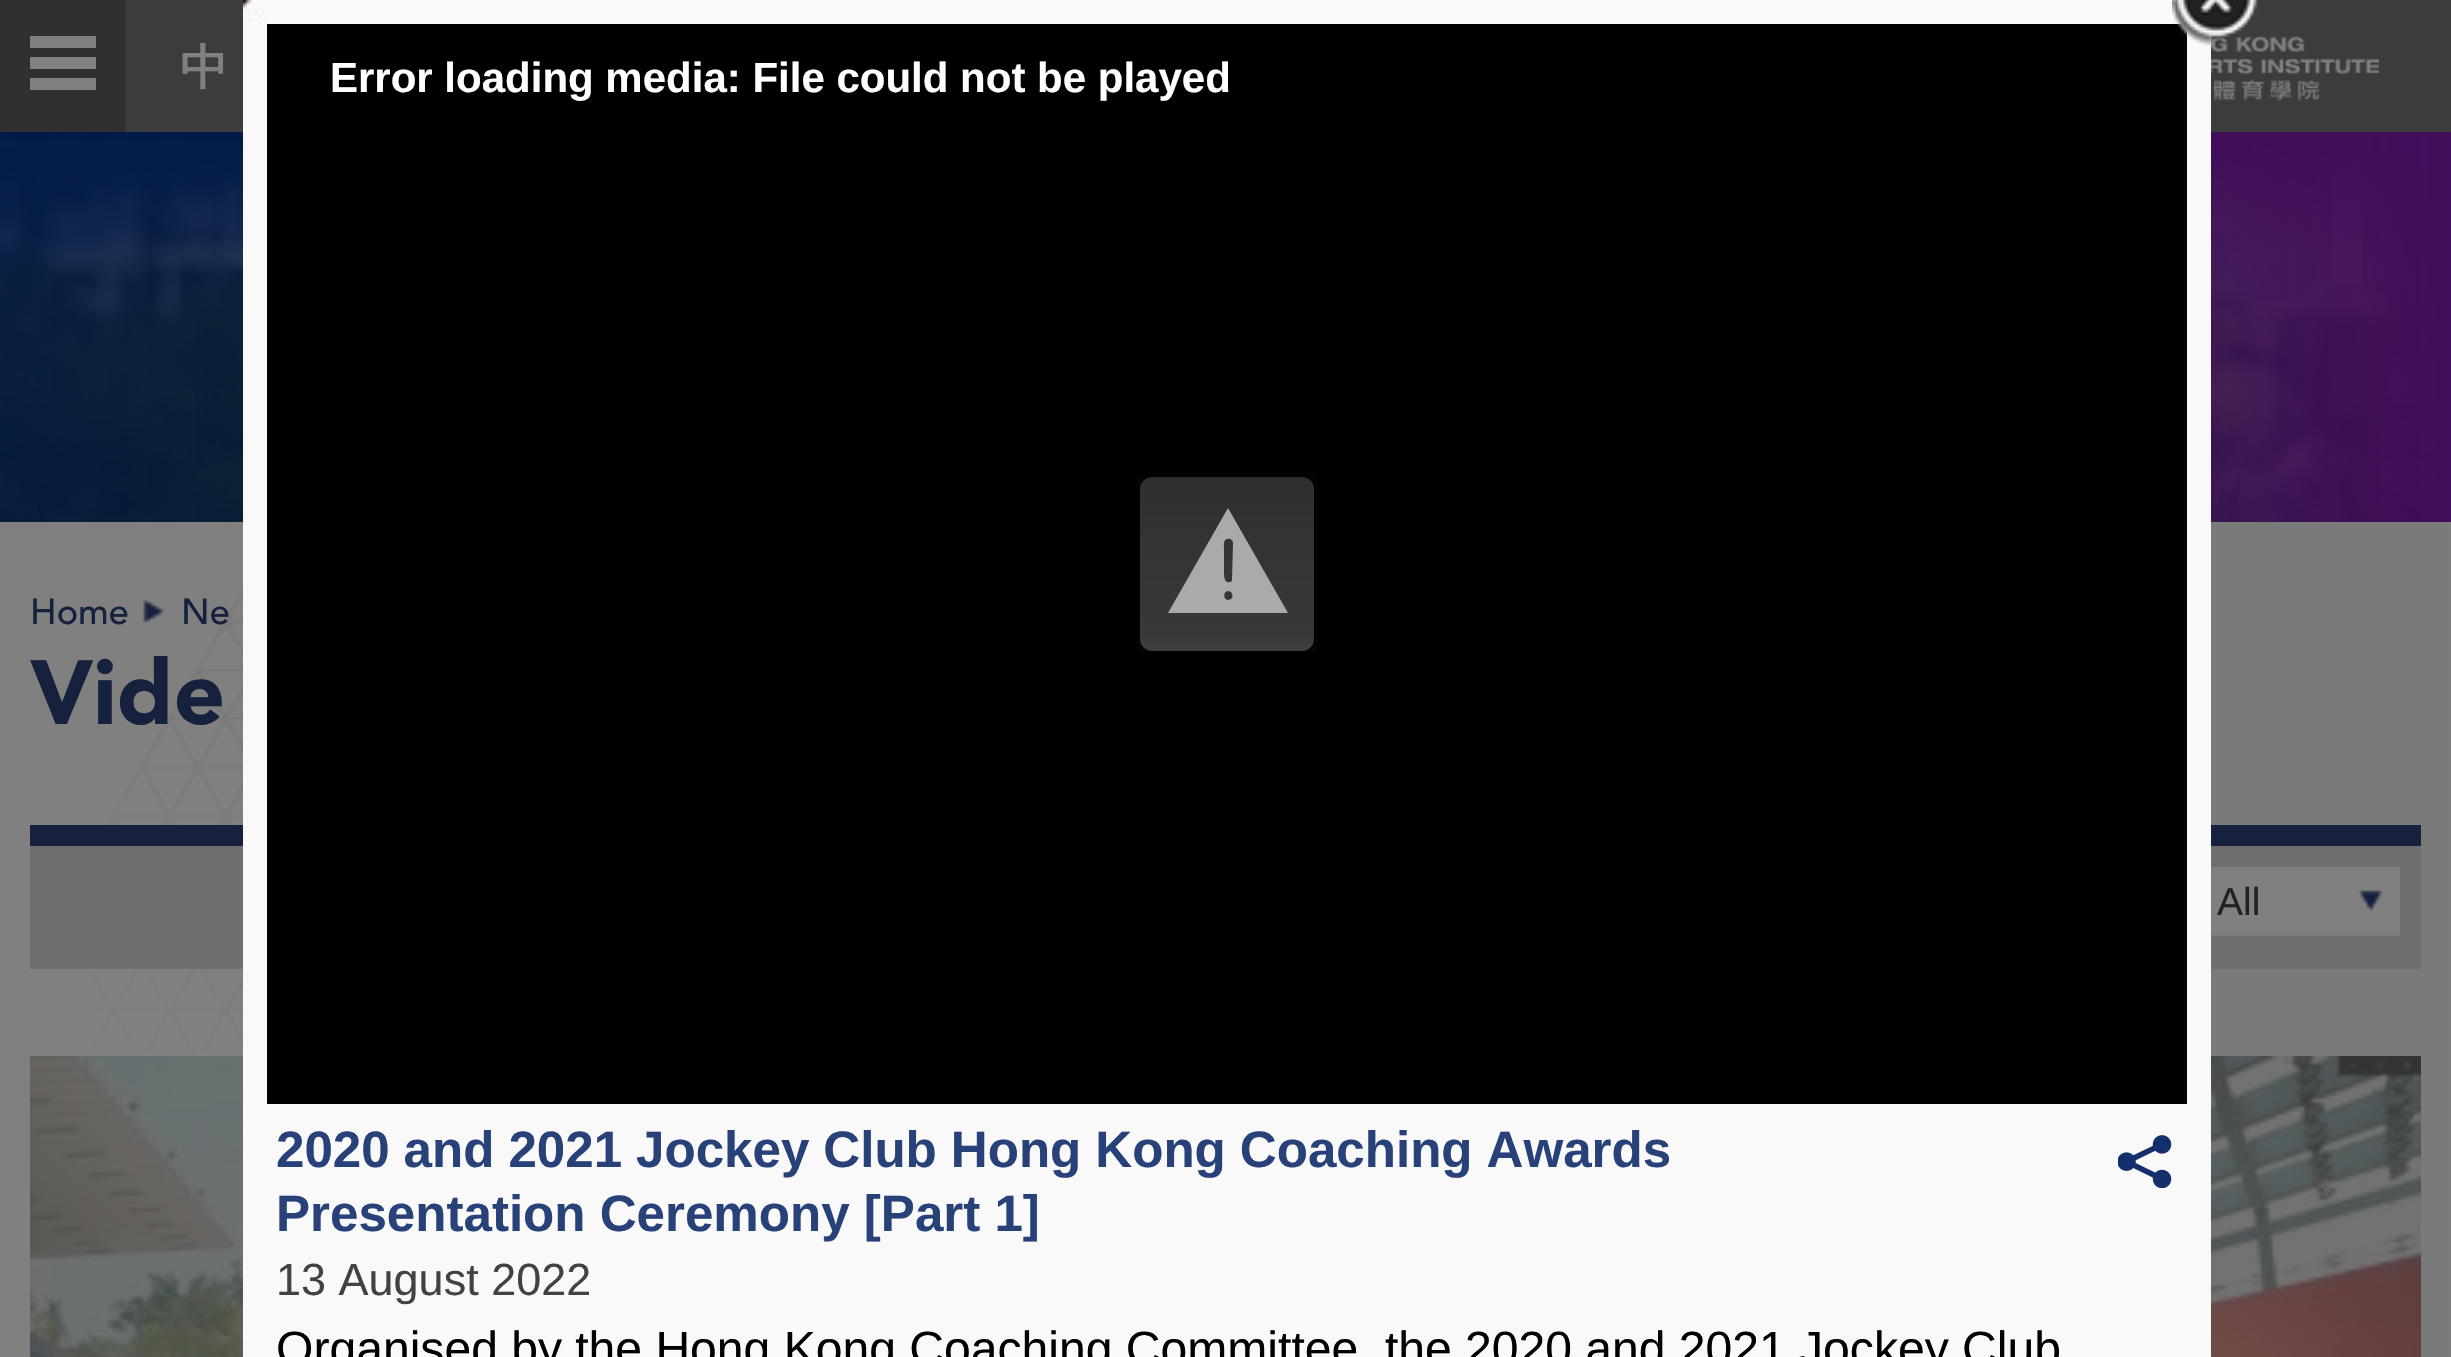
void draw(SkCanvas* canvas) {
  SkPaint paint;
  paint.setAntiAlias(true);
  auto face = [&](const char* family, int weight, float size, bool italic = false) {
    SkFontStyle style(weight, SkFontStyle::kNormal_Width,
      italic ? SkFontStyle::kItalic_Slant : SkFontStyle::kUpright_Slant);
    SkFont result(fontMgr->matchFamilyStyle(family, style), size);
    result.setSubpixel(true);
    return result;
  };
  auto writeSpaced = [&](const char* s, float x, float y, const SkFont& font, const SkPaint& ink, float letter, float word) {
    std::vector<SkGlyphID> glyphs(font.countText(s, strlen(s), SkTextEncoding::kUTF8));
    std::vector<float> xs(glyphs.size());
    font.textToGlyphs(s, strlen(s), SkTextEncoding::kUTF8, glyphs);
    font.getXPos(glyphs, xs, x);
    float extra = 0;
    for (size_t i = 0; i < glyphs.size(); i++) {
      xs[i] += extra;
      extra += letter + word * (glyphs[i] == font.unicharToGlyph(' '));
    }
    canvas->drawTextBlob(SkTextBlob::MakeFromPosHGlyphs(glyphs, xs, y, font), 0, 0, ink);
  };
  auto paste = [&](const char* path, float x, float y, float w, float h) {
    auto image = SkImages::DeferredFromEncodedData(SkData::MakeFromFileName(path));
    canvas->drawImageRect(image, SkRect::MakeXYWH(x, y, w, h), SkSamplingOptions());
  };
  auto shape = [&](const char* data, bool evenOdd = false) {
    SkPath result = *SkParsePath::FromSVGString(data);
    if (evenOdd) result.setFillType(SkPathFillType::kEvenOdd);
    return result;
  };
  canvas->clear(0xff808080);
  paste("img/1.png", 2211, 522, 240, 835);
  {
    const struct { float x, y, w, h; SkColor color; } items[] = {
      {126, 0, 2325, 132, 0xff3c3c3c},
      {0, 0, 126, 132, 0xff303030},
      {30, 36, 66, 12, 0xff808080},
      {30, 57, 66, 12, 0xff808080},
      {30, 78, 66, 12, 0xff808080},
    };
    for (auto [x, y, w, h, color] : items) {
      paint.setColor(color);
      canvas->drawRect(SkRect::MakeXYWH(x, y, w, h), paint);
    }
  }
  paste("img/2.png", 2211, 36, 168, 65);
  paste("img/3.png", 0, 132, 2448, 390);
  paste("img/4.png", 0, 132, 2448, 189);
  {
    const SkColor colors[] = {0x00001a47, 0xff001a47};
    const float stops[] = {0.2f, 0.7f};
    const SkPoint ends[] = {{1227, 327}, {-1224, 327}};
    paint.setShader(SkGradientShader::MakeLinear(ends, colors, stops, 2, SkTileMode::kClamp));
    paint.setAlpha(255);
  }
  canvas->drawRect(SkRect::MakeXYWH(0, 147, 243, 375), paint);
  {
    const SkColor colors[] = {0x00420d5a, 0xff420d5a};
    const float stops[] = {0.15f, 0.5f};
    const SkPoint ends[] = {{1227, 327}, {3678, 327}};
    paint.setShader(SkGradientShader::MakeLinear(ends, colors, stops, 2, SkTileMode::kClamp));
    paint.setAlpha(255);
  }
  canvas->drawRect(SkRect::MakeXYWH(2211, 132, 240, 390), paint);
  paste("img/5.png", 91, 589, 152, 463);
  paste("img/6.png", 143, 599, 23, 26);
  paint.setShader(nullptr);
  {
    const struct { float x, y, w, h; SkColor color; } items[] = {
      {30, 846, 2391, 123, 0xff706e6e},
      {30, 825, 2391, 21, 0xff15213d},
      {2211, 933, 189, 3, 0xff7c7b7b},
      {2211, 867, 189, 66, 0xff808080},
    };
    for (auto [x, y, w, h, color] : items) {
      paint.setColor(color);
      canvas->drawRect(SkRect::MakeXYWH(x, y, w, h), paint);
    }
  }
  paste("img/7.png", 2357, 890, 26, 23);
  paste("img/8.png", 30, 1056, 213, 301);
  paste("img/9.png", 2211, 1056, 210, 301);
  paste("img/10.png", 243, 0, 24, 24);
  {
    const struct { float x, y, w, h; SkColor color; } items[] = {
      {267, 0, 1915, 24, 0xfff9f9f9},
      {243, 24, 24, 1333, 0xfff9f9f9},
      {267, 24, 1920, 1080, 0xff000000},
      {2187, 29, 24, 1328, 0xfff9f9f9},
    };
    for (auto [x, y, w, h, color] : items) {
      paint.setColor(color);
      canvas->drawRect(SkRect::MakeXYWH(x, y, w, h), paint);
    }
  }
  paste("img/11.png", 2172, 0, 87, 45);
  canvas->drawRect(SkRect::MakeXYWH(267, 1104, 1920, 253), paint);
  canvas->save();
  canvas->clipPath(shape("M1152 474H1302C1310.5 474 1317 480.5 1317 489V639C1317 647.5 1310.5 654 1302 654H1152C1143.5 654 1137 647.5 1137 639V489C1137 480.5 1143.5 474 1152 474Z"), true);
  {
    const SkColor colors[] = {0xff3e3e40, 0xff3e3e40, 0xff39393b, 0xff38383a, 0xff343437, 0xff2f2f32, 0xff2c2c2f};
    const float stops[] = {0, 0.03f, 0.07f, 0.1f, 0.59f, 0.97f, 1};
    const SkPoint ends[] = {{1227, 651}, {1227, 477}};
    paint.setShader(SkGradientShader::MakeLinear(ends, colors, stops, 7, SkTileMode::kClamp));
    paint.setAlpha(255);
  }
  canvas->drawRect(SkRect::MakeXYWH(1137, 477, 180, 174), paint);
  canvas->restore();
  paint.setStroke(true);
  paint.setStrokeWidth(3);
  paint.setShader(nullptr);
  paint.setColor(0xff000000);
  canvas->drawRoundRect(SkRect::MakeXYWH(1138.5f, 475.5f, 177, 177), 13.5f, 13.5f, paint);
  paint.setStroke(false);
  paint.setColor(0xffaaaaaa);
  canvas->drawPath(shape("M1168 613L1228 508L1288 613ZM1228 600C1234 600 1234 591 1228 591C1223 591 1223 600 1228 600ZM1233 543C1233 540 1230 538 1227 539C1223 540 1224 546 1224 549V572C1224 575 1224 584 1230 582C1231 582 1232 581 1232 580Z"), paint);
  paste("img/12.png", 2118, 1135, 54, 53);
  auto f0 = face("WenQuanYi Zen Hei", 700, 48.1f);
  paint.setColor(0xff808080);
  canvas->drawString("中", 180, 84, f0, paint);
  auto f1 = face("Avenir", 500, 36);
  paint.setColor(0xff15213d);
  canvas->drawString("Home", 30, 624, f1, paint);
  canvas->drawString("Ne", 181, 624, f1, paint);
  auto f2 = face("Avenir", 900, 90);
  canvas->drawString("Vide", 30, 724, f2, paint);
  auto f3 = face("Liberation Sans", 400, 39);
  paint.setColor(0xff212121);
  canvas->drawString("All", 2217, 915, f3, paint);
  auto f4 = face("Liberation Sans", 700, 42);
  paint.setColor(0xffffffff);
  canvas->drawString("Error loading media: File could not be played", 330, 92, f4, paint);
  auto f5 = face("Liberation Sans", 700, 51.1f);
  paint.setColor(0xff294179);
  writeSpaced("2020 and 2021 Jockey Club Hong Kong Coaching Awards", 276, 1167, f5, paint, 0, -0.25f);
  canvas->drawString("Presentation Ceremony [Part 1]", 276, 1231, f5, paint);
  auto f6 = face("Liberation Sans", 400, 45);
  paint.setColor(0xff424242);
  canvas->drawString("13 August 2022", 276, 1295, f6, paint);
  auto f7 = face("Liberation Sans", 400, 48.1f);
  paint.setColor(0xff000000);
  writeSpaced("Organised by the Hong Kong Coaching Committee, the 2020 and 2021 Jockey Club", 276, 1365, f7, paint, 0, -0.1f);
}
